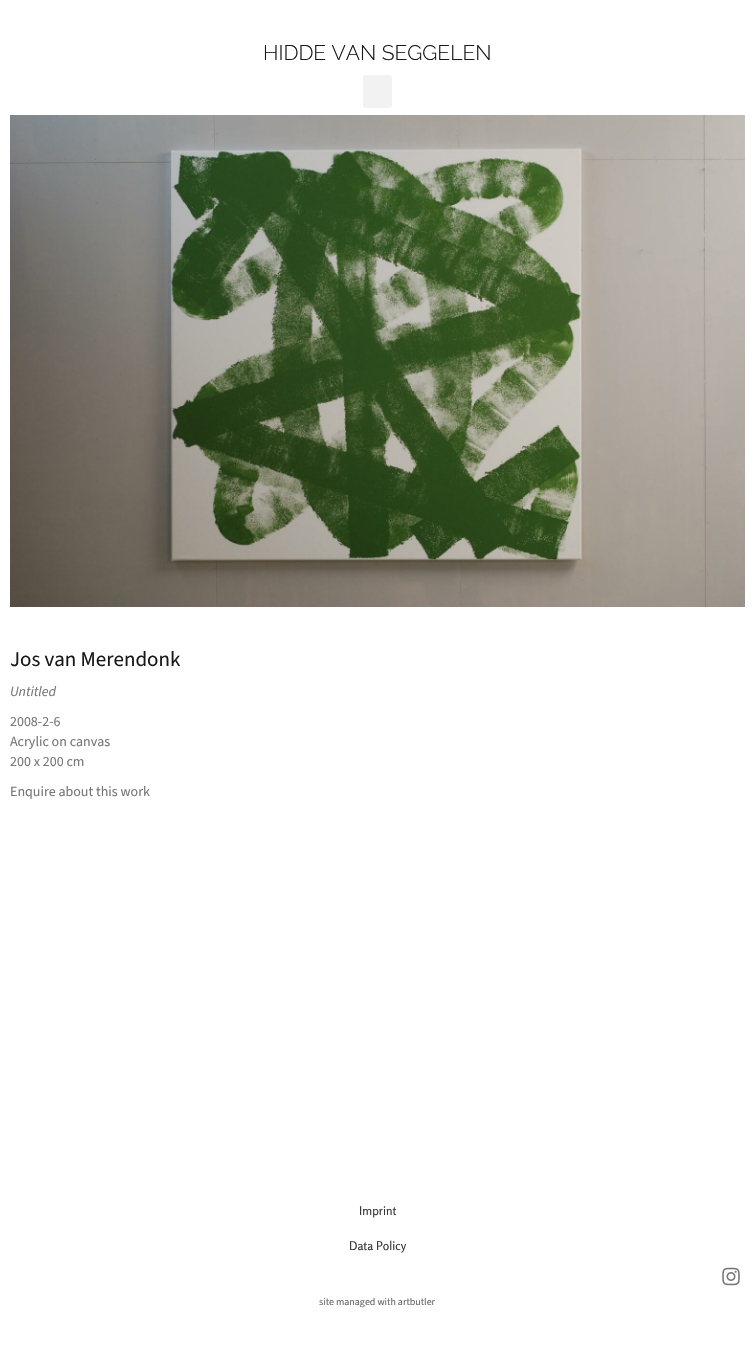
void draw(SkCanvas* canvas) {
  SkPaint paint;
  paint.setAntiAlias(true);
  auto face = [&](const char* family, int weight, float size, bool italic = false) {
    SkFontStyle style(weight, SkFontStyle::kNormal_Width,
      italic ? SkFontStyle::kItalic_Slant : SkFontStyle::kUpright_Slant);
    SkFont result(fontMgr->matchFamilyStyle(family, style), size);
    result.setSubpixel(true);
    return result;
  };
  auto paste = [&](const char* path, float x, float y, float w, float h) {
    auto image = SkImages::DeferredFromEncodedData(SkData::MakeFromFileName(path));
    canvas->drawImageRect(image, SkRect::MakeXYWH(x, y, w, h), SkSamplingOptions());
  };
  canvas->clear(0xffffffff);
  paint.setColor(0xfff2f2f2);
  canvas->drawRoundRect(SkRect::MakeXYWH(363, 75, 29, 33), 3, 3, paint);
  paste("img/1.png", 10, 115, 735, 492);
  paste("img/2.png", 722, 1267, 18, 19);
  auto f0 = face("Raleway", 300, 21);
  paint.setColor(0xff181818);
  canvas->drawString("HIDDE VAN SEGGELEN", 263, 60, f0, paint);
  auto f1 = face("Source Sans 3", 400, 21);
  canvas->drawString("Jos van Merendonk", 10, 666, f1, paint);
  auto f2 = face("Source Sans 3", 400, 14, true);
  paint.setColor(0xff777777);
  canvas->drawString("Untitled", 10, 696, f2, paint);
  auto f3 = face("Source Sans 3", 400, 14);
  {
    const struct { const char* s; float x, y; } items[] = {
      {"2008-2-6", 10, 726},
      {"Acrylic on canvas", 10, 746},
      {"200 x 200 cm", 10, 766},
      {"Enquire about this work", 10, 796},
    };
    for (auto [s, x, y] : items) {
      canvas->drawString(s, x, y, f3, paint);
    }
  }
  auto f4 = face("Rosario", 400, 12);
  paint.setColor(0xff33373d);
  canvas->drawString("Imprint", 359, 1215, f4, paint);
  canvas->drawString("Data Policy", 349, 1250, f4, paint);
  auto f5 = face("Source Sans 3", 400, 10);
  paint.setColor(0xff666666);
  canvas->drawString("site managed with artbutler", 319, 1305, f5, paint);
}
